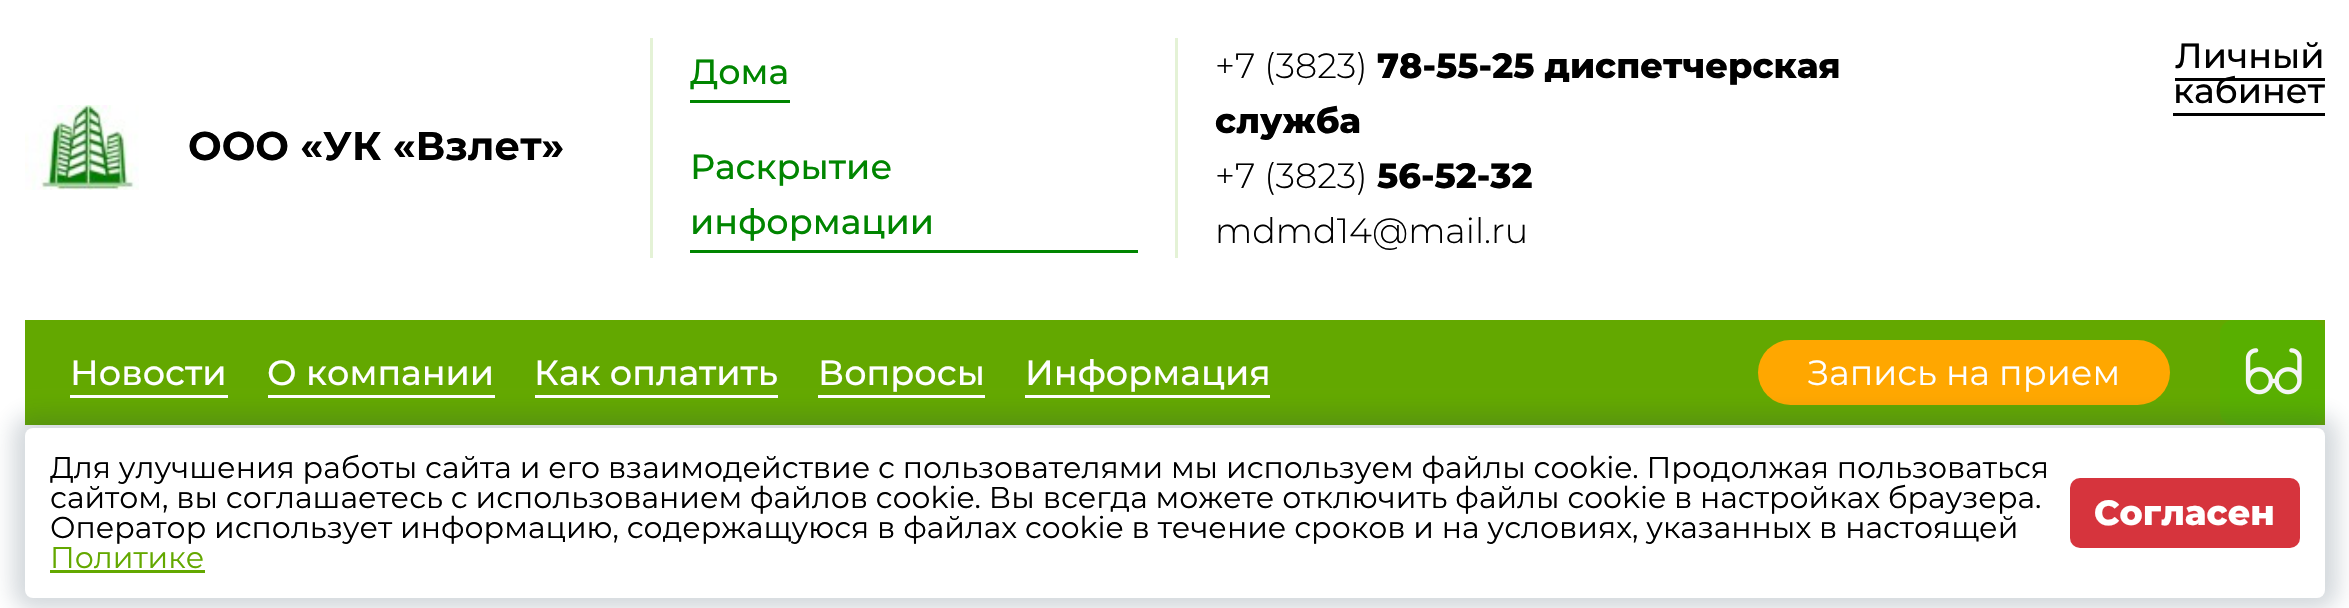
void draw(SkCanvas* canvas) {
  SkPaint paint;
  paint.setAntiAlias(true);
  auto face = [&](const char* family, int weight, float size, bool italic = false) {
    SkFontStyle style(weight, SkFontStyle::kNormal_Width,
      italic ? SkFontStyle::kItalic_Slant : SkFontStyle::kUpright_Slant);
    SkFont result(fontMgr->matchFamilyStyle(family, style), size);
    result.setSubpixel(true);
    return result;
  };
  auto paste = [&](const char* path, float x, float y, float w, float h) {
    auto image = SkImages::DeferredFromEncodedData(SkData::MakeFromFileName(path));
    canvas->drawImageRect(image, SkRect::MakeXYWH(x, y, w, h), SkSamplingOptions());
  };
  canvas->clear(0xffffffff);
  paste("img/1.png", 25, 105, 114, 85);
  {
    const struct { float x, y, w, h; SkColor color; } items[] = {
      {650, 38, 3, 220, 0xffe4f2d6},
      {690, 100, 100, 3, 0xff008500},
      {690, 250, 448, 3, 0xff008500},
      {1175, 38, 3, 220, 0xffe4f2d6},
      {2175, 78, 150, 3, 0xff000000},
      {2173, 113, 152, 3, 0xff000000},
      {25, 320, 2300, 105, 0xff63a800},
      {70, 395, 158, 3, 0xffffffff},
      {268, 395, 227, 3, 0xffffffff},
      {535, 395, 243, 3, 0xffffffff},
      {818, 395, 167, 3, 0xffffffff},
      {1025, 395, 245, 3, 0xffffffff},
    };
    for (auto [x, y, w, h, color] : items) {
      paint.setColor(color);
      canvas->drawRect(SkRect::MakeXYWH(x, y, w, h), paint);
    }
  }
  paint.setColor(0xffffa700);
  canvas->drawRoundRect(SkRect::MakeXYWH(1758, 340, 412, 65), 32.5f, 32.5f, paint);
  paste("img/2.png", 2220, 320, 105, 105);
  paint.setColor(0x33223c50);
  paint.setMaskFilter(SkMaskFilter::MakeBlur(kNormal_SkBlurStyle, 11));
  canvas->drawRoundRect(SkRect::MakeXYWH(13, 415, 2325, 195), 20, 20, paint);
  paint.setMaskFilter(nullptr);
  paint.setColor(0xffffffff);
  canvas->drawRoundRect(SkRect::MakeXYWH(25, 428, 2300, 170), 8, 8, paint);
  paint.setColor(0xff63a800);
  canvas->drawRect(SkRect::MakeXYWH(50, 570, 155, 3), paint);
  paint.setColor(0xffd6343d);
  canvas->drawRoundRect(SkRect::MakeXYWH(2070, 478, 230, 70), 10, 10, paint);
  auto f0 = face("Montserrat", 700, 40);
  paint.setColor(0xff000000);
  canvas->drawString("ООО «УК «Взлет»", 188, 160, f0, paint);
  auto f1 = face("Montserrat", 500, 35);
  paint.setColor(0xff008500);
  {
    const struct { const char* s; float x, y; } items[] = {
      {"Дома", 690, 84},
      {"Раскрытие", 690, 179},
      {"информации", 690, 234},
    };
    for (auto [s, x, y] : items) {
      canvas->drawString(s, x, y, f1, paint);
    }
  }
  auto f2 = face("Montserrat", 300, 35);
  paint.setColor(0xff000000);
  canvas->drawString("+7 (3823)", 1215, 78, f2, paint);
  auto f3 = face("Montserrat", 800, 35);
  canvas->drawString("78-55-25 диспетчерская", 1377, 78, f3, paint);
  canvas->drawString("служба", 1215, 133, f3, paint);
  canvas->drawString("+7 (3823)", 1215, 188, f2, paint);
  canvas->drawString("56-52-32", 1377, 188, f3, paint);
  canvas->drawString("mdmd14@mail.ru", 1215, 243, f2, paint);
  canvas->drawString("Личный", 2175, 68, f1, paint);
  canvas->drawString("кабинет", 2173, 103, f1, paint);
  paint.setColor(0xffffffff);
  {
    const struct { const char* s; float x, y; } items[] = {
      {"Новости", 70, 385},
      {"О компании", 267, 385},
      {"Как оплатить", 534, 385},
      {"Вопросы", 818, 385},
      {"Информация", 1025, 385},
    };
    for (auto [s, x, y] : items) {
      canvas->drawString(s, x, y, f1, paint);
    }
  }
  auto f4 = face("Montserrat", 400, 35);
  canvas->drawString("Запись на прием", 1807, 385, f4, paint);
  auto f5 = face("Montserrat", 400, 30);
  paint.setColor(0xff000000);
  {
    const struct { const char* s; float x, y; } items[] = {
      {"Для улучшения работы сайта и его взаимодействие с пользователями мы используем файлы cookie. Продолжая пользоваться", 50, 478},
      {"сайтом, вы соглашаетесь с использованием файлов cookie. Вы всегда можете отключить файлы cookie в настройках браузера.", 50, 508},
      {"Оператор использует информацию, содержащуюся в файлах cookie в течение сроков и на условиях, указанных в настоящей", 50, 538},
    };
    for (auto [s, x, y] : items) {
      canvas->drawString(s, x, y, f5, paint);
    }
  }
  paint.setColor(0xff63a800);
  canvas->drawString("Политике", 50, 568, f5, paint);
  paint.setColor(0xffffffff);
  canvas->drawString("Согласен", 2094, 525, f3, paint);
}
